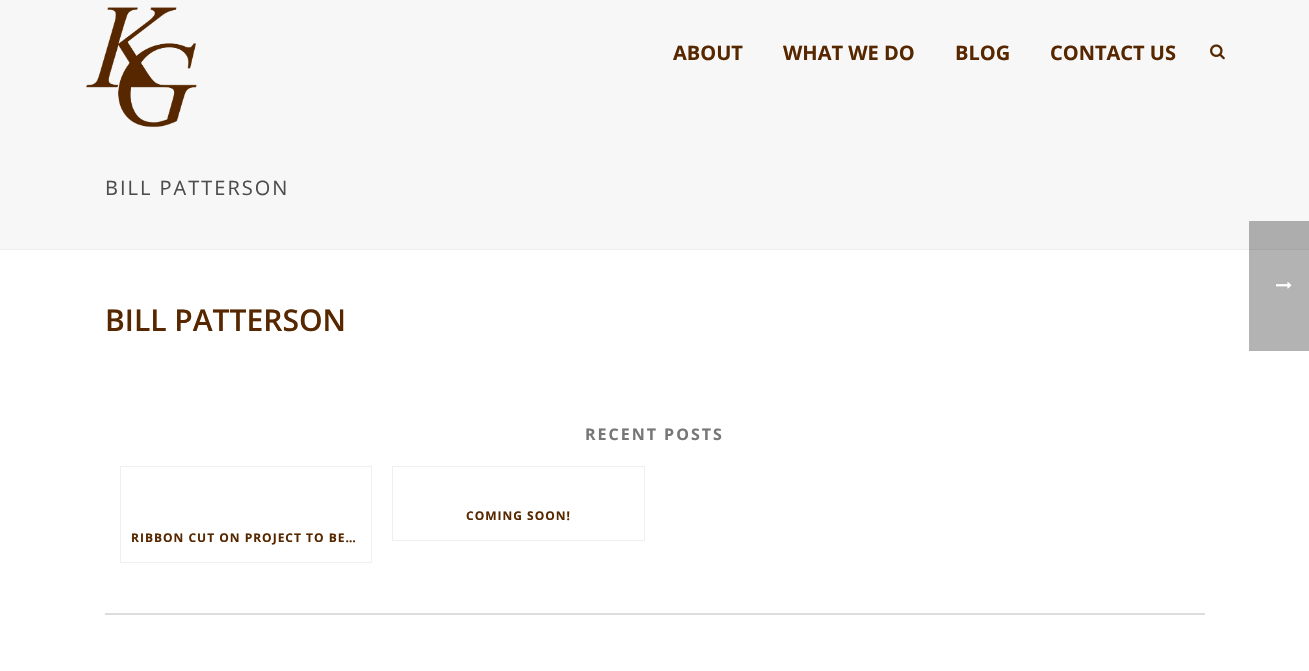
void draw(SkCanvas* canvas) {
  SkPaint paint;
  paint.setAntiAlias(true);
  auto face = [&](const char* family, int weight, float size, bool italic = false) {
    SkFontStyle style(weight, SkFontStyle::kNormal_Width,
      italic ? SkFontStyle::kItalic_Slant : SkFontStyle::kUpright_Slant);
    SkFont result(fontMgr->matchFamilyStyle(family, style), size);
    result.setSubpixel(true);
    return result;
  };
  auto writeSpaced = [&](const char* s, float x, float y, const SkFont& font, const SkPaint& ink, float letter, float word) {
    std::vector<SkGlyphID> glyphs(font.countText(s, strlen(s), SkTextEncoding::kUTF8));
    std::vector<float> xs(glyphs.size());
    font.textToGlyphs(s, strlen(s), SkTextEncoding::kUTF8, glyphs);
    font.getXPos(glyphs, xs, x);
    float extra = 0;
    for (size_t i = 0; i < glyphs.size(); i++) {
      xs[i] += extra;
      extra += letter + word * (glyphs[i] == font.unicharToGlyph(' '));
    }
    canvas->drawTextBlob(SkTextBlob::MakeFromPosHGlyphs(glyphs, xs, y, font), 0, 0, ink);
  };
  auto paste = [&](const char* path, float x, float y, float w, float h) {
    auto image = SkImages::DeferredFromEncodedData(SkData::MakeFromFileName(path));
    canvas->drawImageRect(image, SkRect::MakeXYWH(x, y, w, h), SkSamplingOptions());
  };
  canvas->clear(0xffffffff);
  {
    const struct { float x, y, w, h; SkColor color; } items[] = {
      {1249, 250, 60, 101, 0xffb3b3b3},
      {0, 0, 1309, 249, 0xfff7f7f7},
      {1249, 221, 60, 28, 0xffadadad},
      {0, 249, 1249, 1, 0xffededed},
      {1249, 249, 60, 1, 0xffa6a6a6},
    };
    for (auto [x, y, w, h, color] : items) {
      paint.setColor(color);
      canvas->drawRect(SkRect::MakeXYWH(x, y, w, h), paint);
    }
  }
  paste("img/1.png", 86, 7, 111, 121);
  paste("img/2.png", 1210, 44, 15, 16);
  paint.setColor(0xffdddddd);
  canvas->drawRect(SkRect::MakeXYWH(105, 613, 1100, 2), paint);
  paint.setStroke(true);
  paint.setStrokeWidth(1);
  paint.setColor(0xffefefef);
  canvas->drawRect(SkRect::MakeXYWH(392.5f, 466.5f, 252, 74), paint);
  canvas->drawRect(SkRect::MakeXYWH(120.5f, 466.5f, 251, 96), paint);
  paste("img/3.png", 1276, 282, 16, 7);
  auto f0 = face("Open Sans", 700, 20);
  paint.setStroke(false);
  paint.setColor(0xff572800);
  {
    const struct { const char* s; float x, y; } items[] = {
      {"ABOUT", 673, 60},
      {"WHAT WE DO", 783, 60},
      {"BLOG", 955, 60},
      {"CONTACT US", 1050, 60},
    };
    for (auto [s, x, y] : items) {
      canvas->drawString(s, x, y, f0, paint);
    }
  }
  auto f1 = face("Open Sans", 400, 20);
  paint.setColor(0xff4d4d4d);
  writeSpaced("BILL PATTERSON", 105, 195, f1, paint, 2, 0);
  auto f2 = face("Open Sans", 600, 30);
  paint.setColor(0xff572800);
  canvas->drawString("BILL PATTERSON", 105, 331, f2, paint);
  auto f3 = face("Open Sans", 700, 16);
  paint.setColor(0xff777777);
  writeSpaced("RECENT POSTS", 585, 440, f3, paint, 2, 0);
  auto f4 = face("Open Sans", 700, 12);
  paint.setColor(0xff572800);
  writeSpaced("COMING SOON!", 466, 520, f4, paint, 1, 0);
  writeSpaced("RIBBON CUT ON PROJECT TO BE…", 131, 542, f4, paint, 1, 0);
}
